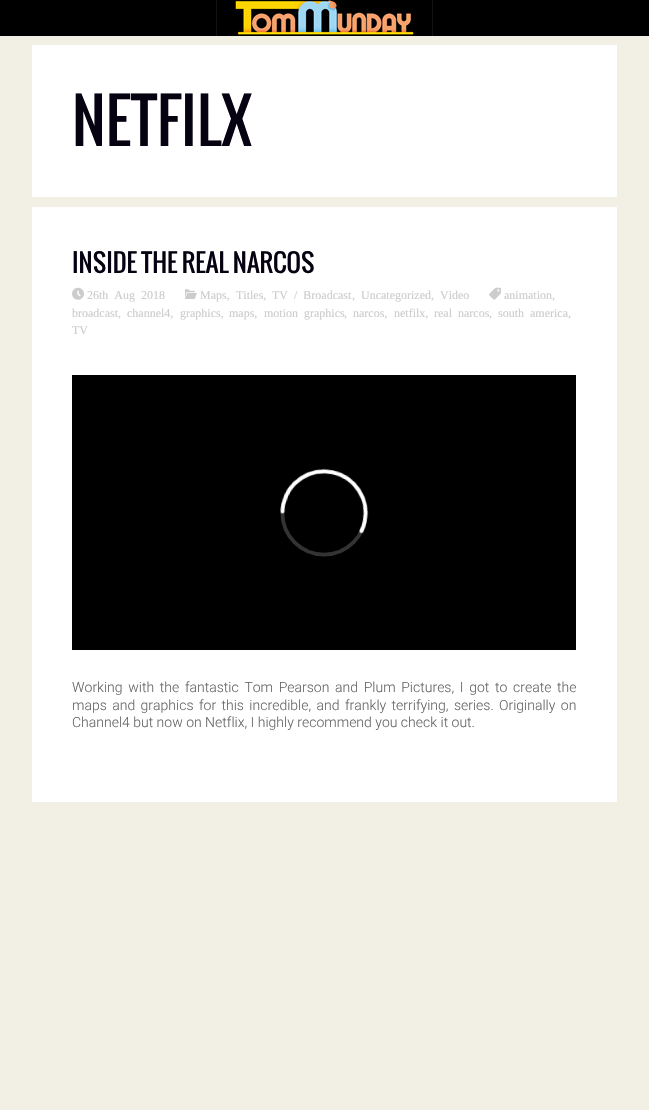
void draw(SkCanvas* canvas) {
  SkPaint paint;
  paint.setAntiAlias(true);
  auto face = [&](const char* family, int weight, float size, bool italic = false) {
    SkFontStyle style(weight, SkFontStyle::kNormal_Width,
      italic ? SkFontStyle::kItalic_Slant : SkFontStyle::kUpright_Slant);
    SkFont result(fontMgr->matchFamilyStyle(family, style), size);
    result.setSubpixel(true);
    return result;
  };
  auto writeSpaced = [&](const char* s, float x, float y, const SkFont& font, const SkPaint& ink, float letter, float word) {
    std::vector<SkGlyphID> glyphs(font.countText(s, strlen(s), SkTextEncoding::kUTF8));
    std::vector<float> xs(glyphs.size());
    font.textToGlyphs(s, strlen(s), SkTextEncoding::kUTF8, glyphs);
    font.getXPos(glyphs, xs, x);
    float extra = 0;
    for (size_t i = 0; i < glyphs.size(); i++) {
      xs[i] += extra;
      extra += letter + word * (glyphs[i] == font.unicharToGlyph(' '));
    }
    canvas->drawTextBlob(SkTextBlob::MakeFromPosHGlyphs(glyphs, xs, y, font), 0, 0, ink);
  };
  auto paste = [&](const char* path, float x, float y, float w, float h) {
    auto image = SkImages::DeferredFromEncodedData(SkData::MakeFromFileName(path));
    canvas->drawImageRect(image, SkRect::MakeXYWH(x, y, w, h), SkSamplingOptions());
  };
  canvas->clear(0xfff2f0e4);
  paint.setColor(0xff000000);
  canvas->drawRect(SkRect::MakeXYWH(0, 0, 649, 36), paint);
  paste("img/1.png", 216, 0, 217, 36);
  paint.setColor(0xffffffff);
  canvas->drawRect(SkRect::MakeXYWH(32, 45, 585, 152), paint);
  canvas->drawRect(SkRect::MakeXYWH(32, 207, 585, 595), paint);
  paste("img/2.png", 72, 287, 12, 13);
  paste("img/3.png", 185, 289, 12, 10);
  paste("img/4.png", 489, 287, 12, 13);
  paste("img/5.png", 72, 375, 504, 275);
  auto f0 = face("Oswald", 400, 60);
  paint.setColor(0xff070211);
  canvas->drawString("NETFILX", 72, 146, f0, paint);
  auto f1 = face("Oswald", 400, 25);
  canvas->drawString("INSIDE THE REAL NARCOS", 72, 273, f1, paint);
  auto f2 = face("Liberation Serif", 400, 12);
  paint.setColor(0xffcccccc);
  writeSpaced("26th Aug 2018", 87, 299, f2, paint, 0, 3);
  canvas->drawString("Maps,", 200, 299, f2, paint);
  canvas->drawString("Titles,", 236, 299, f2, paint);
  writeSpaced("TV / Broadcast", 272, 299, f2, paint, 0, 3);
  {
    const struct { const char* s; float x, y; } items[] = {
      {",", 352, 299},
      {"Uncategorized,", 361, 299},
      {"Video", 440, 299},
      {"animation,", 504, 299},
      {"broadcast,", 72, 317},
      {"channel4,", 127, 317},
      {"graphics,", 180, 317},
      {"maps,", 229, 317},
    };
    for (auto [s, x, y] : items) {
      canvas->drawString(s, x, y, f2, paint);
    }
  }
  writeSpaced("motion graphics", 264, 317, f2, paint, 0, 3);
  {
    const struct { const char* s; float x, y; } items[] = {
      {",", 344, 317},
      {"narcos,", 353, 317},
      {"netfilx,", 394, 317},
    };
    for (auto [s, x, y] : items) {
      canvas->drawString(s, x, y, f2, paint);
    }
  }
  writeSpaced("real narcos", 434, 317, f2, paint, 0, 3);
  canvas->drawString(",", 489, 317, f2, paint);
  writeSpaced("south america", 498, 317, f2, paint, 0, 3);
  canvas->drawString(",", 568, 317, f2, paint);
  canvas->drawString("TV", 72, 334, f2, paint);
  auto f3 = face("Roboto", 300, 14);
  paint.setColor(0xff666666);
  writeSpaced("Working with the fantastic Tom Pearson and Plum Pictures, I got to create the", 72, 692, f3, paint, 0, 2.25f);
  writeSpaced("maps and graphics for this incredible, and frankly terrifying, series.", 72, 710, f3, paint, 0, 2);
  writeSpaced("Originally on", 499, 710, f3, paint, 0, 2);
  canvas->drawString("Channel4 but now on Netflix, I highly recommend you check it out.", 72, 727, f3, paint);
}
